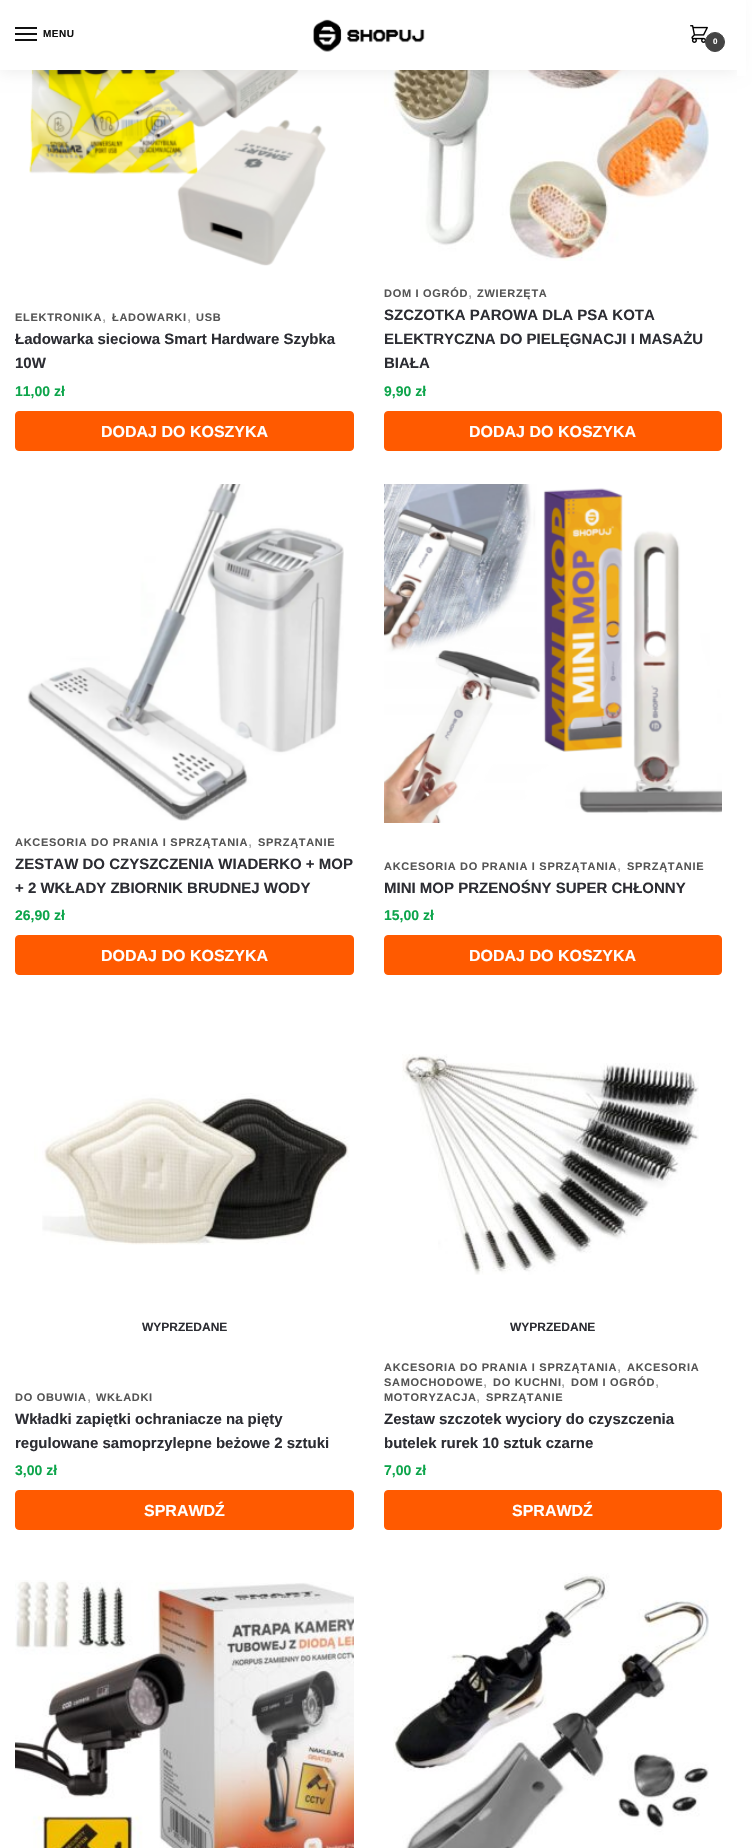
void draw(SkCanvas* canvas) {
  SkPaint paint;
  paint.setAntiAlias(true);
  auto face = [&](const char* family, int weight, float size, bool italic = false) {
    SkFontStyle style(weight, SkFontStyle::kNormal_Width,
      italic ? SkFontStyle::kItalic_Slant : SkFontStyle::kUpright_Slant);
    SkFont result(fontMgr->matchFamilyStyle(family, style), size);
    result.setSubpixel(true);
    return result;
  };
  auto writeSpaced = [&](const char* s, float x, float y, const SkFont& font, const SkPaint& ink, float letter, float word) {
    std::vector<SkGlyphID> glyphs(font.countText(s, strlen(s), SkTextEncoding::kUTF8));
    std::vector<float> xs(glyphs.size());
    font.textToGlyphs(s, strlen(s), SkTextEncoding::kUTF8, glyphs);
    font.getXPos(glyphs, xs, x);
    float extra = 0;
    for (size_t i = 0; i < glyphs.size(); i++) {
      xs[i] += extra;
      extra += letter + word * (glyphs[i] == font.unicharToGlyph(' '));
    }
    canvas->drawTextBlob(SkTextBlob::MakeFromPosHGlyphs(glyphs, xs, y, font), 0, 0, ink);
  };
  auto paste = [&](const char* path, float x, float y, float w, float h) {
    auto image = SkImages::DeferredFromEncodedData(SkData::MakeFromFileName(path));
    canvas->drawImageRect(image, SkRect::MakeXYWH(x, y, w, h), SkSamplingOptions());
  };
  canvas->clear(0xffffffff);
  paste("img/3.png", 29, 70, 297, 196);
  paste("img/4.png", 384, 70, 325, 191);
  paint.setColor(0x14000000);
  paint.setMaskFilter(SkMaskFilter::MakeBlur(kNormal_SkBlurStyle, 7.5f));
  canvas->drawRect(SkRect::MakeXYWH(0, 1, 737, 70), paint);
  paint.setMaskFilter(nullptr);
  {
    const struct { float x, y, w, h; SkColor color; } items[] = {
      {0, 0, 737, 70, 0xffffffff},
      {15, 27, 22, 2, 0xff111111},
      {15, 33, 22, 2, 0xff111111},
      {15, 39, 22, 2, 0xff111111},
    };
    for (auto [x, y, w, h, color] : items) {
      paint.setColor(color);
      canvas->drawRect(SkRect::MakeXYWH(x, y, w, h), paint);
    }
  }
  paste("img/1.png", 313, 19, 112, 33);
  paste("img/2.png", 690, 25, 18, 18);
  paint.setColor(0xff444444);
  canvas->drawCircle(715, 42, 9.5f, paint);
  paint.setStroke(true);
  paint.setStrokeWidth(1);
  canvas->drawCircle(715, 42, 9.5f, paint);
  paint.setStroke(false);
  paint.setColor(0xffffffff);
  canvas->drawRect(SkRect::MakeXYWH(737, 0, 9, 76), paint);
  paint.setColor(0xffff5a00);
  canvas->drawRoundRect(SkRect::MakeXYWH(15.5f, 411.5f, 338, 39), 3.5f, 3.5f, paint);
  paint.setStroke(true);
  canvas->drawRoundRect(SkRect::MakeXYWH(15.5f, 411.5f, 338, 39), 3.5f, 3.5f, paint);
  paint.setStroke(false);
  canvas->drawRoundRect(SkRect::MakeXYWH(384.5f, 411.5f, 337, 39), 3.5f, 3.5f, paint);
  paint.setStroke(true);
  canvas->drawRoundRect(SkRect::MakeXYWH(384.5f, 411.5f, 337, 39), 3.5f, 3.5f, paint);
  paste("img/5.png", 27, 484, 317, 337);
  paint.setStroke(false);
  canvas->drawRoundRect(SkRect::MakeXYWH(15.5f, 935.5f, 338, 39), 3.5f, 3.5f, paint);
  paint.setStroke(true);
  canvas->drawRoundRect(SkRect::MakeXYWH(15.5f, 935.5f, 338, 39), 3.5f, 3.5f, paint);
  paste("img/6.png", 384, 484, 338, 339);
  paint.setStroke(false);
  canvas->drawRoundRect(SkRect::MakeXYWH(384.5f, 935.5f, 337, 39), 3.5f, 3.5f, paint);
  paint.setStroke(true);
  canvas->drawRoundRect(SkRect::MakeXYWH(384.5f, 935.5f, 337, 39), 3.5f, 3.5f, paint);
  paste("img/7.png", 34, 1093, 316, 152);
  paint.setStroke(false);
  canvas->drawRoundRect(SkRect::MakeXYWH(15.5f, 1490.5f, 338, 39), 3.5f, 3.5f, paint);
  paint.setStroke(true);
  canvas->drawRoundRect(SkRect::MakeXYWH(15.5f, 1490.5f, 338, 39), 3.5f, 3.5f, paint);
  paste("img/8.png", 402, 1054, 297, 221);
  paint.setStroke(false);
  canvas->drawRoundRect(SkRect::MakeXYWH(384.5f, 1490.5f, 337, 39), 3.5f, 3.5f, paint);
  paint.setStroke(true);
  canvas->drawRoundRect(SkRect::MakeXYWH(384.5f, 1490.5f, 337, 39), 3.5f, 3.5f, paint);
  paste("img/9.png", 15, 1580, 339, 268);
  paste("img/10.png", 393, 1573, 316, 275);
  auto f0 = face("Liberation Sans", 700, 10);
  paint.setStroke(false);
  paint.setColor(0xff111111);
  writeSpaced("MENU", 43, 37, f0, paint, 0.5f, 0);
  auto f1 = face("Liberation Sans", 700, 8);
  paint.setColor(0xffffffff);
  canvas->drawString("0", 713, 44, f1, paint);
  auto f2 = face("Liberation Sans", 700, 11);
  paint.setColor(0xff555555);
  writeSpaced("ELEKTRONIKA", 15, 321, f2, paint, 0.7f, 0);
  auto f3 = face("Liberation Sans", 400, 15);
  paint.setColor(0xff999999);
  writeSpaced(",", 102, 321, f3, paint, 0.7f, 0);
  paint.setColor(0xff555555);
  writeSpaced("ŁADOWARKI", 112, 321, f2, paint, 0.7f, 0);
  paint.setColor(0xff999999);
  writeSpaced(",", 187, 321, f3, paint, 0.7f, 0);
  paint.setColor(0xff555555);
  writeSpaced("USB", 196, 321, f2, paint, 0.7f, 0);
  auto f4 = face("Liberation Sans", 700, 15);
  paint.setColor(0xff2c2d33);
  canvas->drawString("Ładowarka sieciowa Smart Hardware Szybka", 15, 344, f4, paint);
  canvas->drawString("10W", 15, 368, f4, paint);
  auto f5 = face("Liberation Sans", 700, 14);
  paint.setColor(0xff0da54b);
  canvas->drawString("11,00 zł", 15, 396, f5, paint);
  auto f6 = face("Liberation Sans", 700, 16);
  paint.setColor(0xffffffff);
  canvas->drawString("DODAJ DO KOSZYKA", 101, 437, f6, paint);
  paint.setColor(0xff555555);
  writeSpaced("DOM I OGRÓD", 384, 297, f2, paint, 0.7f, 0);
  paint.setColor(0xff999999);
  writeSpaced(",", 468, 297, f3, paint, 0.7f, 0);
  paint.setColor(0xff555555);
  writeSpaced("ZWIERZĘTA", 477, 297, f2, paint, 0.7f, 0);
  paint.setColor(0xff2c2d33);
  {
    const struct { const char* s; float x, y; } items[] = {
      {"SZCZOTKA PAROWA DLA PSA KOTA", 384, 320},
      {"ELEKTRYCZNA DO PIELĘGNACJI I MASAŻU", 384, 344},
      {"BIAŁA", 384, 368},
    };
    for (auto [s, x, y] : items) {
      canvas->drawString(s, x, y, f4, paint);
    }
  }
  paint.setColor(0xff0da54b);
  canvas->drawString("9,90 zł", 384, 396, f5, paint);
  paint.setColor(0xffffffff);
  canvas->drawString("DODAJ DO KOSZYKA", 469, 437, f6, paint);
  paint.setColor(0xff555555);
  writeSpaced("AKCESORIA DO PRANIA I SPRZĄTANIA", 15, 846, f2, paint, 0.7f, 0);
  paint.setColor(0xff999999);
  writeSpaced(",", 248, 846, f3, paint, 0.7f, 0);
  paint.setColor(0xff555555);
  writeSpaced("SPRZĄTANIE", 258, 846, f2, paint, 0.7f, 0);
  paint.setColor(0xff2c2d33);
  canvas->drawString("ZESTAW DO CZYSZCZENIA WIADERKO + MOP", 15, 869, f4, paint);
  canvas->drawString("+ 2 WKŁADY ZBIORNIK BRUDNEJ WODY", 15, 893, f4, paint);
  paint.setColor(0xff0da54b);
  canvas->drawString("26,90 zł", 15, 920, f5, paint);
  paint.setColor(0xffffffff);
  canvas->drawString("DODAJ DO KOSZYKA", 101, 961, f6, paint);
  paint.setColor(0xff555555);
  writeSpaced("AKCESORIA DO PRANIA I SPRZĄTANIA", 384, 870, f2, paint, 0.7f, 0);
  paint.setColor(0xff999999);
  writeSpaced(",", 617, 870, f3, paint, 0.7f, 0);
  paint.setColor(0xff555555);
  writeSpaced("SPRZĄTANIE", 627, 870, f2, paint, 0.7f, 0);
  paint.setColor(0xff2c2d33);
  canvas->drawString("MINI MOP PRZENOŚNY SUPER CHŁONNY", 384, 893, f4, paint);
  paint.setColor(0xff0da54b);
  canvas->drawString("15,00 zł", 384, 920, f5, paint);
  paint.setColor(0xffffffff);
  canvas->drawString("DODAJ DO KOSZYKA", 469, 961, f6, paint);
  auto f7 = face("Liberation Sans", 700, 12);
  paint.setColor(0xff2c2d33);
  canvas->drawString("WYPRZEDANE", 142, 1331, f7, paint);
  paint.setColor(0xff555555);
  writeSpaced("DO OBUWIA", 15, 1401, f2, paint, 0.7f, 0);
  paint.setColor(0xff999999);
  writeSpaced(",", 87, 1401, f3, paint, 0.7f, 0);
  paint.setColor(0xff555555);
  writeSpaced("WKŁADKI", 96, 1401, f2, paint, 0.7f, 0);
  paint.setColor(0xff2c2d33);
  canvas->drawString("Wkładki zapiętki ochraniacze na pięty", 15, 1424, f4, paint);
  canvas->drawString("regulowane samoprzylepne beżowe 2 sztuki", 15, 1448, f4, paint);
  paint.setColor(0xff0da54b);
  canvas->drawString("3,00 zł", 15, 1475, f5, paint);
  paint.setColor(0xffffffff);
  canvas->drawString("SPRAWDŹ", 144, 1516, f6, paint);
  paint.setColor(0xff2c2d33);
  canvas->drawString("WYPRZEDANE", 510, 1331, f7, paint);
  paint.setColor(0xff555555);
  writeSpaced("AKCESORIA DO PRANIA I SPRZĄTANIA", 384, 1371, f2, paint, 0.7f, 0);
  paint.setColor(0xff999999);
  writeSpaced(",", 617, 1371, f3, paint, 0.7f, 0);
  paint.setColor(0xff555555);
  writeSpaced("AKCESORIA", 627, 1371, f2, paint, 0.7f, 0);
  writeSpaced("SAMOCHODOWE", 384, 1386, f2, paint, 0.7f, 0);
  paint.setColor(0xff999999);
  writeSpaced(",", 483, 1386, f3, paint, 0.7f, 0);
  paint.setColor(0xff555555);
  writeSpaced("DO KUCHNI", 493, 1386, f2, paint, 0.7f, 0);
  paint.setColor(0xff999999);
  writeSpaced(",", 561, 1386, f3, paint, 0.7f, 0);
  paint.setColor(0xff555555);
  writeSpaced("DOM I OGRÓD", 571, 1386, f2, paint, 0.7f, 0);
  paint.setColor(0xff999999);
  writeSpaced(",", 655, 1386, f3, paint, 0.7f, 0);
  paint.setColor(0xff555555);
  writeSpaced("MOTORYZACJA", 384, 1401, f2, paint, 0.7f, 0);
  paint.setColor(0xff999999);
  writeSpaced(",", 476, 1401, f3, paint, 0.7f, 0);
  paint.setColor(0xff555555);
  writeSpaced("SPRZĄTANIE", 486, 1401, f2, paint, 0.7f, 0);
  paint.setColor(0xff2c2d33);
  canvas->drawString("Zestaw szczotek wyciory do czyszczenia", 384, 1424, f4, paint);
  canvas->drawString("butelek rurek 10 sztuk czarne", 384, 1448, f4, paint);
  paint.setColor(0xff0da54b);
  canvas->drawString("7,00 zł", 384, 1475, f5, paint);
  paint.setColor(0xffffffff);
  canvas->drawString("SPRAWDŹ", 512, 1516, f6, paint);
}
